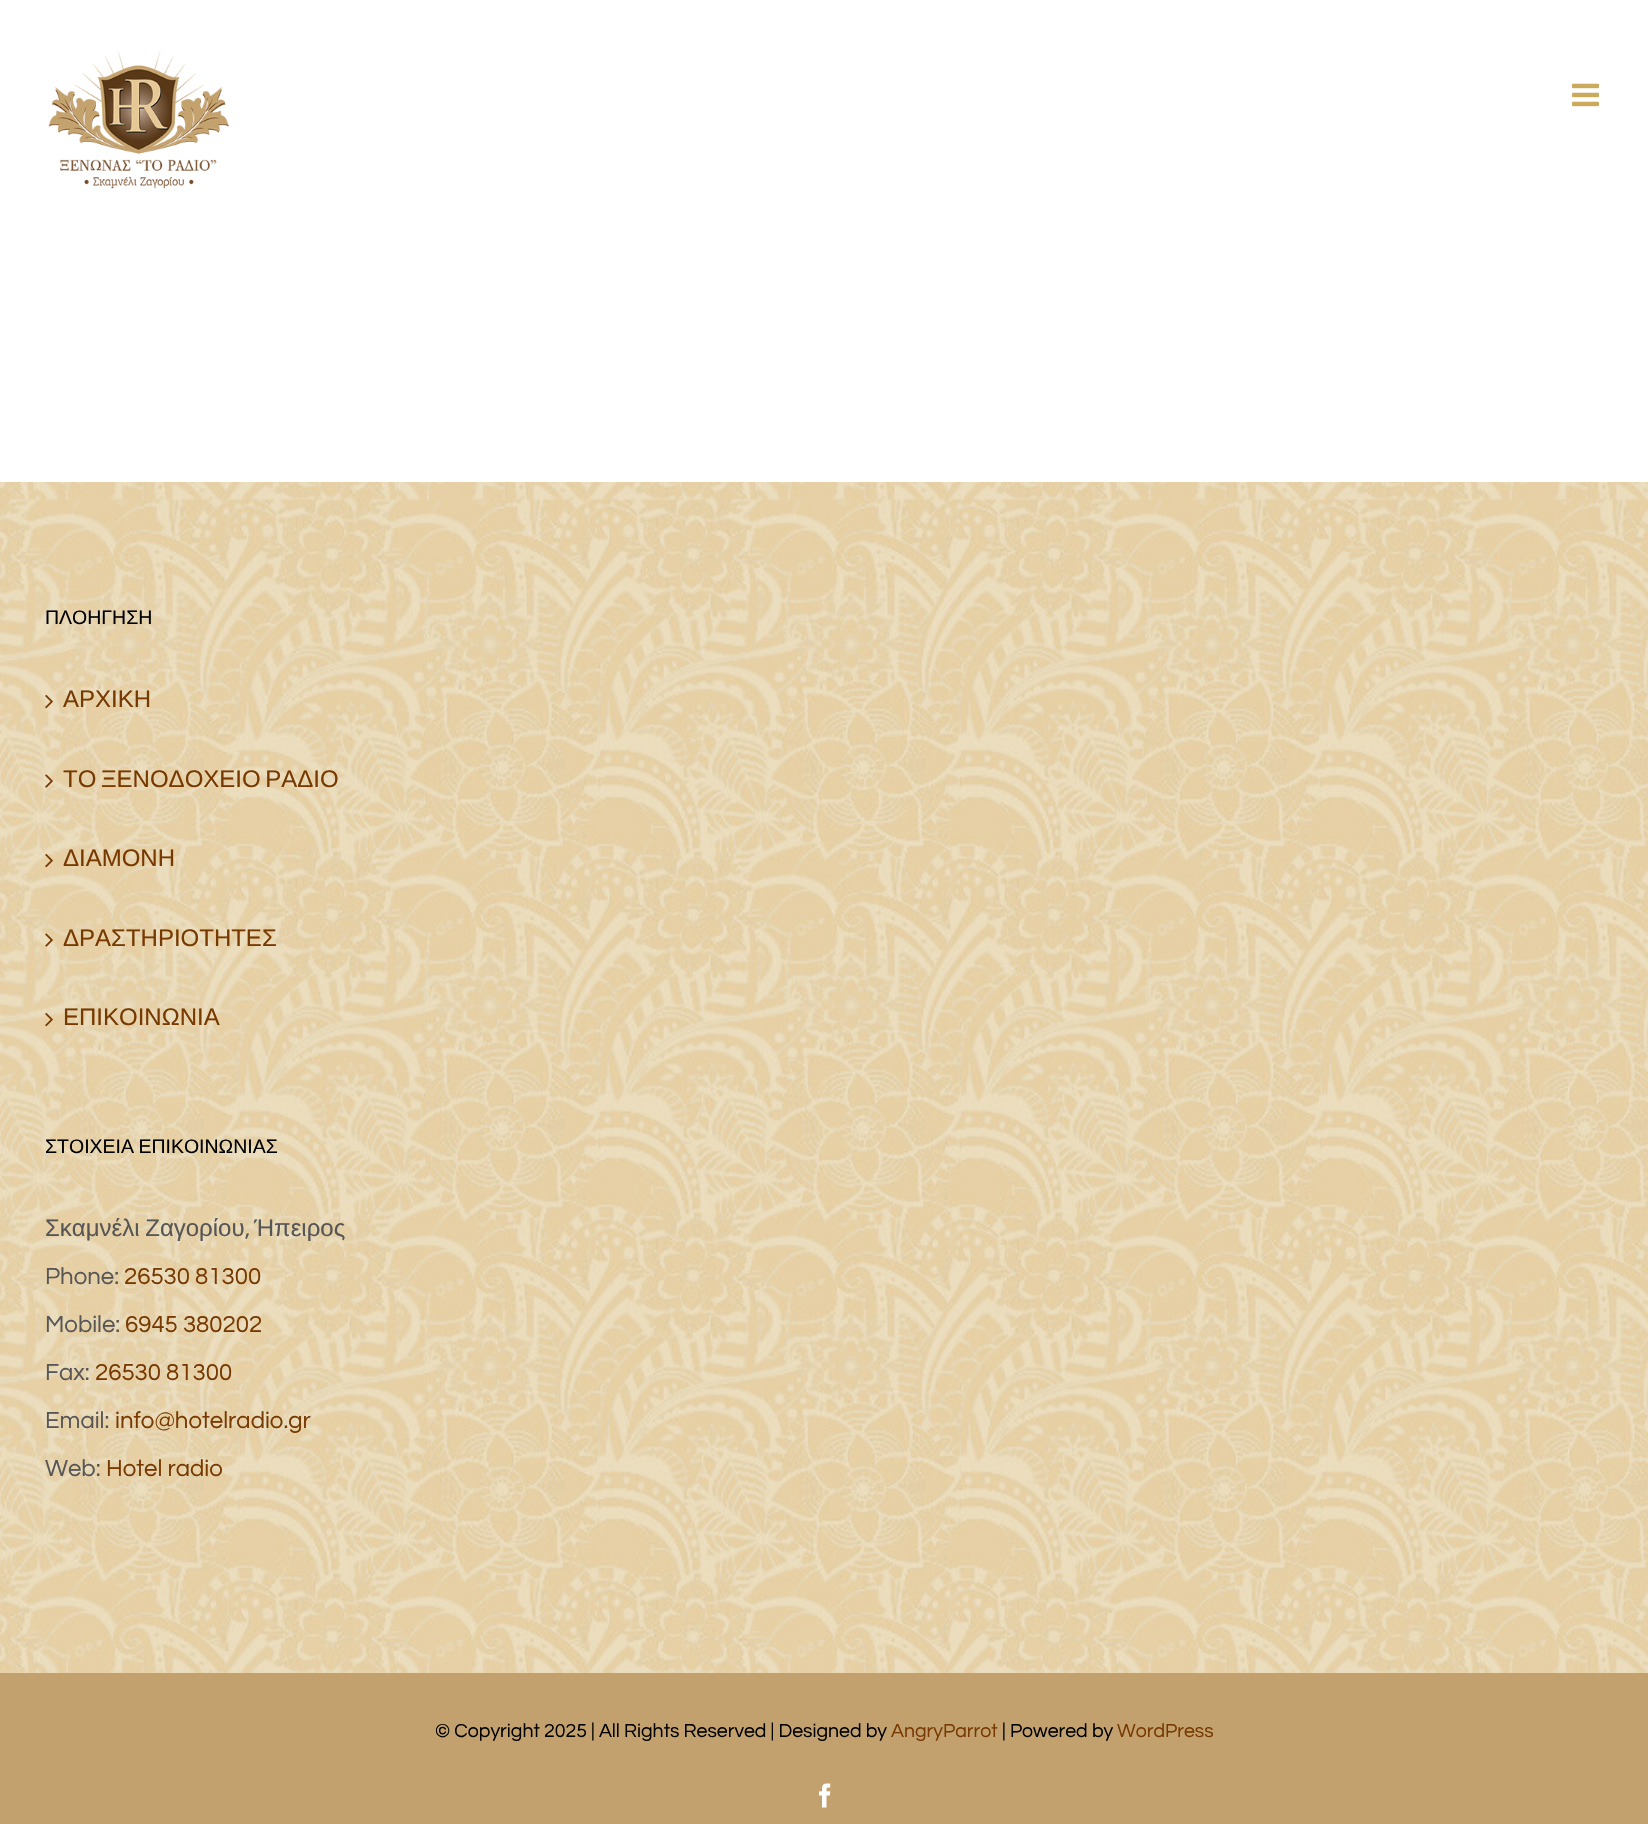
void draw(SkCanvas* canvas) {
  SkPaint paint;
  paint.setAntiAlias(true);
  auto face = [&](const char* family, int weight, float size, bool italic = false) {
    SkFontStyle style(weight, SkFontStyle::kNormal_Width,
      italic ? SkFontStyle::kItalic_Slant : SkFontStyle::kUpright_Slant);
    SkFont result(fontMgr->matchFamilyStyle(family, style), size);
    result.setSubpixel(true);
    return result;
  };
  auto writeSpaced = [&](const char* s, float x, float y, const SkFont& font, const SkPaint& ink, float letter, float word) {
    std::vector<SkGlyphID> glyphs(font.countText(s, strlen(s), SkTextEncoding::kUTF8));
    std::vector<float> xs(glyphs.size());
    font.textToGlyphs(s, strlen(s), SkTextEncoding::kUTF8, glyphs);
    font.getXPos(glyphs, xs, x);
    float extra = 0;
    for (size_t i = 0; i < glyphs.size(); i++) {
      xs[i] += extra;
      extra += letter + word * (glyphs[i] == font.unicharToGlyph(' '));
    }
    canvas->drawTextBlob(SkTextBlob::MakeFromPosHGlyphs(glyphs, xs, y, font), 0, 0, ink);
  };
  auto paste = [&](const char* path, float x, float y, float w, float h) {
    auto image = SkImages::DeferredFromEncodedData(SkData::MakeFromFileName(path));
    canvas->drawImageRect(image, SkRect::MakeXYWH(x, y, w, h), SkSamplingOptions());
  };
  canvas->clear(0xffffffff);
  paste("img/1.png", 48, 51, 181, 138);
  paste("img/2.png", 1572, 83, 27, 24);
  paste("img/3.png", 0, 482, 1648, 1191);
  paste("img/4.png", 45, 694, 8, 15);
  paste("img/5.png", 45, 774, 8, 14);
  paste("img/6.png", 45, 853, 8, 15);
  paste("img/7.png", 45, 933, 8, 14);
  paste("img/8.png", 45, 1012, 8, 15);
  paint.setColor(0xffc3a16e);
  canvas->drawRect(SkRect::MakeXYWH(0, 1673, 1648, 151), paint);
  paste("img/9.png", 819, 1783, 12, 25);
  auto f0 = face("Liberation Sans", 400, 19.5f);
  paint.setColor(0xff000000);
  canvas->drawString("ΠΛΟΗΓΗΣΗ", 45, 624, f0, paint);
  auto f1 = face("Liberation Sans", 400, 24);
  paint.setColor(0xff773900);
  canvas->drawString("ΑΡΧΙΚΗ", 63, 707, f1, paint);
  writeSpaced("ΤΟ ΞΕΝΟΔΟΧΕΙΟ ΡΑΔΙΟ", 63, 787, f1, paint, 0, -2);
  {
    const struct { const char* s; float x, y; } items[] = {
      {"ΔΙΑΜΟΝΗ", 63, 866},
      {"ΔΡΑΣΤΗΡΙΟΤΗΤΕΣ", 63, 946},
      {"ΕΠΙΚΟΙΝΩΝΙΑ", 63, 1025},
    };
    for (auto [s, x, y] : items) {
      canvas->drawString(s, x, y, f1, paint);
    }
  }
  paint.setColor(0xff000000);
  writeSpaced("ΣΤΟΙΧΕΙΑ ΕΠΙΚΟΙΝΩΝΙΑΣ", 45, 1153, f0, paint, 0, -1);
  paint.setColor(0xff565656);
  writeSpaced("Σκαμνέλι Ζαγορίου", 45, 1236, f1, paint, 0, -1);
  auto f2 = face("Questrial", 400, 24);
  canvas->drawString(",", 245, 1236, f2, paint);
  canvas->drawString("Ήπειρος", 254, 1236, f1, paint);
  canvas->drawString("Phone:", 45, 1284, f2, paint);
  paint.setColor(0xff773900);
  canvas->drawString("26530 81300", 124, 1284, f2, paint);
  paint.setColor(0xff565656);
  canvas->drawString("Mobile:", 45, 1332, f2, paint);
  paint.setColor(0xff773900);
  canvas->drawString("6945 380202", 125, 1332, f2, paint);
  paint.setColor(0xff565656);
  canvas->drawString("Fax:", 45, 1380, f2, paint);
  paint.setColor(0xff773900);
  canvas->drawString("26530 81300", 95, 1380, f2, paint);
  paint.setColor(0xff565656);
  canvas->drawString("Email:", 45, 1428, f2, paint);
  paint.setColor(0xff773900);
  canvas->drawString("info@hotelradio.gr", 115, 1428, f2, paint);
  paint.setColor(0xff565656);
  canvas->drawString("Web:", 45, 1476, f2, paint);
  paint.setColor(0xff773900);
  canvas->drawString("Hotel radio", 106, 1476, f2, paint);
  auto f3 = face("Questrial", 400, 19.5f);
  paint.setColor(0xff000000);
  canvas->drawString("© Copyright 2025 | All Rights Reserved | Designed by", 435, 1737, f3, paint);
  paint.setColor(0xff773900);
  canvas->drawString("AngryParrot", 891, 1737, f3, paint);
  paint.setColor(0xff000000);
  canvas->drawString("| Powered by", 1002, 1737, f3, paint);
  paint.setColor(0xff773900);
  canvas->drawString("WordPress", 1117, 1737, f3, paint);
}
